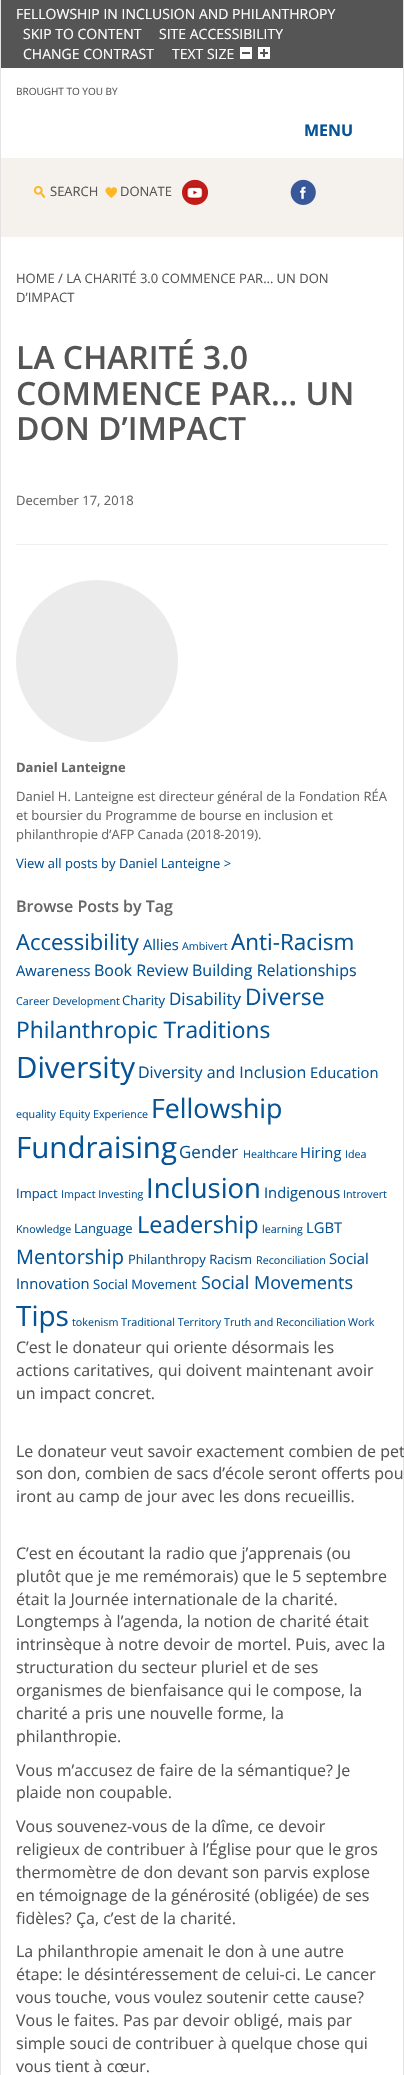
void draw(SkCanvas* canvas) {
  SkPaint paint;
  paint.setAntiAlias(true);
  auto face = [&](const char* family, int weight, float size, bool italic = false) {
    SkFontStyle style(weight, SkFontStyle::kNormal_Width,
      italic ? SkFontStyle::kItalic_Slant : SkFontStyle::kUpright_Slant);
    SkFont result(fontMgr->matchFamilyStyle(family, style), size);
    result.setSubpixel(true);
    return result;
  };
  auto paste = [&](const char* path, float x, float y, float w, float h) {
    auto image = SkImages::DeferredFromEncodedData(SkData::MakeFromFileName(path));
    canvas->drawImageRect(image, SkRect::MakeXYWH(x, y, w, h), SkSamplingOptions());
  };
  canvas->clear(0xffffffff);
  {
    const struct { float x, y, w, h; SkColor color; } items[] = {
      {403, 0, 1, 2075, 0xffe4e4e4},
      {0, 0, 1, 2075, 0xffe4e4e4},
      {1, 0, 402, 68, 0xff555555},
    };
    for (auto [x, y, w, h, color] : items) {
      paint.setColor(color);
      canvas->drawRect(SkRect::MakeXYWH(x, y, w, h), paint);
    }
  }
  paste("img/1.png", 240, 47, 12, 12);
  paste("img/2.png", 258, 47, 12, 12);
  paint.setColor(0xfff5f2ed);
  canvas->drawRect(SkRect::MakeXYWH(1, 158, 402, 79), paint);
  paste("img/3.png", 33, 186, 13, 13);
  paste("img/4.png", 105, 187, 12, 11);
  paste("img/5.png", 182, 179, 27, 26);
  paste("img/6.png", 290, 179, 26, 26);
  paint.setColor(0xffeeeeee);
  canvas->drawRect(SkRect::MakeXYWH(16, 544, 372, 1), paint);
  paint.setColor(0xffebebeb);
  canvas->drawCircle(97, 661, 81, paint);
  auto f0 = face("Open Sans", 400, 14);
  paint.setColor(0xffffffff);
  {
    const struct { const char* s; float x, y; } items[] = {
      {"FELLOWSHIP IN INCLUSION AND PHILANTHROPY", 16, 19},
      {"SKIP TO CONTENT", 23, 39},
      {"SITE ACCESSIBILITY", 159, 39},
      {"CHANGE CONTRAST", 23, 59},
      {"TEXT SIZE", 172, 59},
    };
    for (auto [s, x, y] : items) {
      canvas->drawString(s, x, y, f0, paint);
    }
  }
  auto f1 = face("Open Sans", 400, 10);
  paint.setColor(0xff555555);
  canvas->drawString("BROUGHT TO YOU BY", 16, 95, f1, paint);
  auto f2 = face("Open Sans", 700, 16);
  paint.setColor(0xff065496);
  canvas->drawString("MENU", 304, 136, f2, paint);
  auto f3 = face("Open Sans", 400, 13);
  paint.setColor(0xff555555);
  {
    const struct { const char* s; float x, y; } items[] = {
      {"SEARCH", 50, 196},
      {"DONATE", 120, 196},
      {"HOME / LA CHARITÉ 3.0 COMMENCE PAR… UN DON", 16, 283},
      {"D’IMPACT", 16, 302},
    };
    for (auto [s, x, y] : items) {
      canvas->drawString(s, x, y, f3, paint);
    }
  }
  auto f4 = face("Open Sans", 600, 32);
  {
    const struct { const char* s; float x, y; } items[] = {
      {"LA CHARITÉ 3.0", 16, 369},
      {"COMMENCE PAR… UN", 16, 405},
      {"DON D’IMPACT", 16, 440},
    };
    for (auto [s, x, y] : items) {
      canvas->drawString(s, x, y, f4, paint);
    }
  }
  paint.setColor(0xff666666);
  canvas->drawString("December 17, 2018", 16, 505, f3, paint);
  auto f5 = face("Open Sans", 700, 13);
  canvas->drawString("Daniel Lanteigne", 16, 772, f5, paint);
  {
    const struct { const char* s; float x, y; } items[] = {
      {"Daniel H. Lanteigne est directeur général de la Fondation RÉA", 16, 801},
      {"et boursier du Programme de bourse en inclusion et", 16, 820},
      {"philanthropie d’AFP Canada (2018-2019).", 16, 839},
    };
    for (auto [s, x, y] : items) {
      canvas->drawString(s, x, y, f3, paint);
    }
  }
  paint.setColor(0xff065496);
  canvas->drawString("View all posts by Daniel Lanteigne >", 16, 868, f3, paint);
  auto f6 = face("Open Sans", 600, 16);
  paint.setColor(0xff666666);
  canvas->drawString("Browse Posts by Tag", 16, 912, f6, paint);
  auto f7 = face("Open Sans", 400, 22);
  paint.setColor(0xff065496);
  canvas->drawString("Accessibility", 16, 950, f7, paint);
  auto f8 = face("Open Sans", 400, 14.75f);
  canvas->drawString("Allies", 143, 950, f8, paint);
  auto f9 = face("Open Sans", 400, 10.75f);
  canvas->drawString("Ambivert", 182, 950, f9, paint);
  auto f10 = face("Open Sans", 400, 22.5f);
  canvas->drawString("Anti-Racism", 231, 950, f10, paint);
  canvas->drawString("Awareness", 16, 976, f8, paint);
  auto f11 = face("Open Sans", 400, 16);
  canvas->drawString("Book Review", 94, 976, f11, paint);
  canvas->drawString("Building Relationships", 192, 976, f11, paint);
  canvas->drawString("Career Development", 16, 1005, f9, paint);
  canvas->drawString("Charity", 122, 1005, f3, paint);
  auto f12 = face("Open Sans", 400, 17);
  canvas->drawString("Disability", 169, 1005, f12, paint);
  auto f13 = face("Open Sans", 400, 22.8f);
  canvas->drawString("Diverse", 245, 1005, f13, paint);
  canvas->drawString("Philanthropic Traditions", 16, 1038, f13, paint);
  auto f14 = face("Open Sans", 400, 29.5f);
  canvas->drawString("Diversity", 16, 1078, f14, paint);
  canvas->drawString("Diversity and Inclusion", 138, 1078, f11, paint);
  canvas->drawString("Education", 310, 1078, f8, paint);
  {
    const struct { const char* s; float x, y; } items[] = {
      {"equality", 16, 1118},
      {"Equity", 59, 1118},
      {"Experience", 93, 1118},
    };
    for (auto [s, x, y] : items) {
      canvas->drawString(s, x, y, f9, paint);
    }
  }
  auto f15 = face("Open Sans", 400, 26.75f);
  canvas->drawString("Fellowship", 151, 1118, f15, paint);
  canvas->drawString("Fundraising", 16, 1158, f14, paint);
  canvas->drawString("Gender", 179, 1158, f12, paint);
  canvas->drawString("Healthcare", 243, 1158, f9, paint);
  canvas->drawString("Hiring", 300, 1158, f8, paint);
  canvas->drawString("Idea", 345, 1158, f9, paint);
  canvas->drawString("Impact", 16, 1198, f3, paint);
  canvas->drawString("Impact Investing", 61, 1198, f9, paint);
  auto f16 = face("Open Sans", 400, 27.5f);
  canvas->drawString("Inclusion", 146, 1198, f16, paint);
  canvas->drawString("Indigenous", 264, 1198, f8, paint);
  canvas->drawString("Introvert", 343, 1198, f9, paint);
  canvas->drawString("Knowledge", 16, 1233, f9, paint);
  canvas->drawString("Language", 74, 1233, f3, paint);
  auto f17 = face("Open Sans", 400, 23.5f);
  canvas->drawString("Leadership", 137, 1233, f17, paint);
  canvas->drawString("learning", 262, 1233, f9, paint);
  canvas->drawString("LGBT", 306, 1233, f8, paint);
  auto f18 = face("Open Sans", 400, 20);
  canvas->drawString("Mentorship", 16, 1264, f18, paint);
  canvas->drawString("Philanthropy Racism", 128, 1264, f3, paint);
  canvas->drawString("Reconciliation", 256, 1264, f9, paint);
  canvas->drawString("Social", 329, 1264, f8, paint);
  canvas->drawString("Innovation", 16, 1289, f8, paint);
  canvas->drawString("Social Movement", 93, 1289, f3, paint);
  auto f19 = face("Open Sans", 400, 18);
  canvas->drawString("Social Movements", 201, 1289, f19, paint);
  auto f20 = face("Open Sans", 400, 28);
  canvas->drawString("Tips", 16, 1326, f20, paint);
  {
    const struct { const char* s; float x, y; } items[] = {
      {"tokenism", 72, 1326},
      {"Traditional Territory", 121, 1326},
      {"Truth and Reconciliation", 224, 1326},
      {"Work", 348, 1326},
    };
    for (auto [s, x, y] : items) {
      canvas->drawString(s, x, y, f9, paint);
    }
  }
  paint.setColor(0xff555555);
  {
    const struct { const char* s; float x, y; } items[] = {
      {"C’est le donateur qui oriente désormais les", 16, 1353},
      {"actions caritatives, qui doivent maintenant avoir", 16, 1376},
      {"un impact concret.", 16, 1399},
      {"Le donateur veut savoir exactement combien de pet", 16, 1457},
      {"son don, combien de sacs d’école seront offerts pou", 16, 1479},
      {"iront au camp de jour avec les dons recueillis.", 16, 1502},
      {"C’est en écoutant la radio que j’apprenais (ou", 16, 1559},
      {"plutôt que je me remémorais) que le 5 septembre", 16, 1582},
      {"était la Journée internationale de la charité.", 16, 1605},
      {"Longtemps à l’agenda, la notion de charité était", 16, 1627},
      {"intrinsèque à notre devoir de mortel. Puis, avec la", 16, 1650},
      {"structuration du secteur pluriel et de ses", 16, 1673},
      {"organismes de bienfaisance qui le compose, la", 16, 1696},
      {"charité a pris une nouvelle forme, la", 16, 1719},
      {"philanthropie.", 16, 1742},
      {"Vous m’accusez de faire de la sémantique? Je", 16, 1776},
      {"plaide non coupable.", 16, 1798},
      {"Vous souvenez-vous de la dîme, ce devoir", 16, 1832},
      {"religieux de contribuer à l’Église pour que le gros", 16, 1855},
      {"thermomètre de don devant son parvis explose", 16, 1878},
      {"en témoignage de la générosité (obligée) de ses", 16, 1901},
      {"fidèles? Ça, c’est de la charité.", 16, 1924},
      {"La philanthropie amenait le don à une autre", 16, 1957},
      {"étape: le désintéressement de celui-ci. Le cancer", 16, 1980},
      {"vous touche, vous voulez soutenir cette cause?", 16, 2003},
      {"Vous le faites. Pas par devoir obligé, mais par", 16, 2026},
      {"simple souci de contribuer à quelque chose qui", 16, 2049},
      {"vous tient à cœur.", 16, 2072},
    };
    for (auto [s, x, y] : items) {
      canvas->drawString(s, x, y, f11, paint);
    }
  }
}
